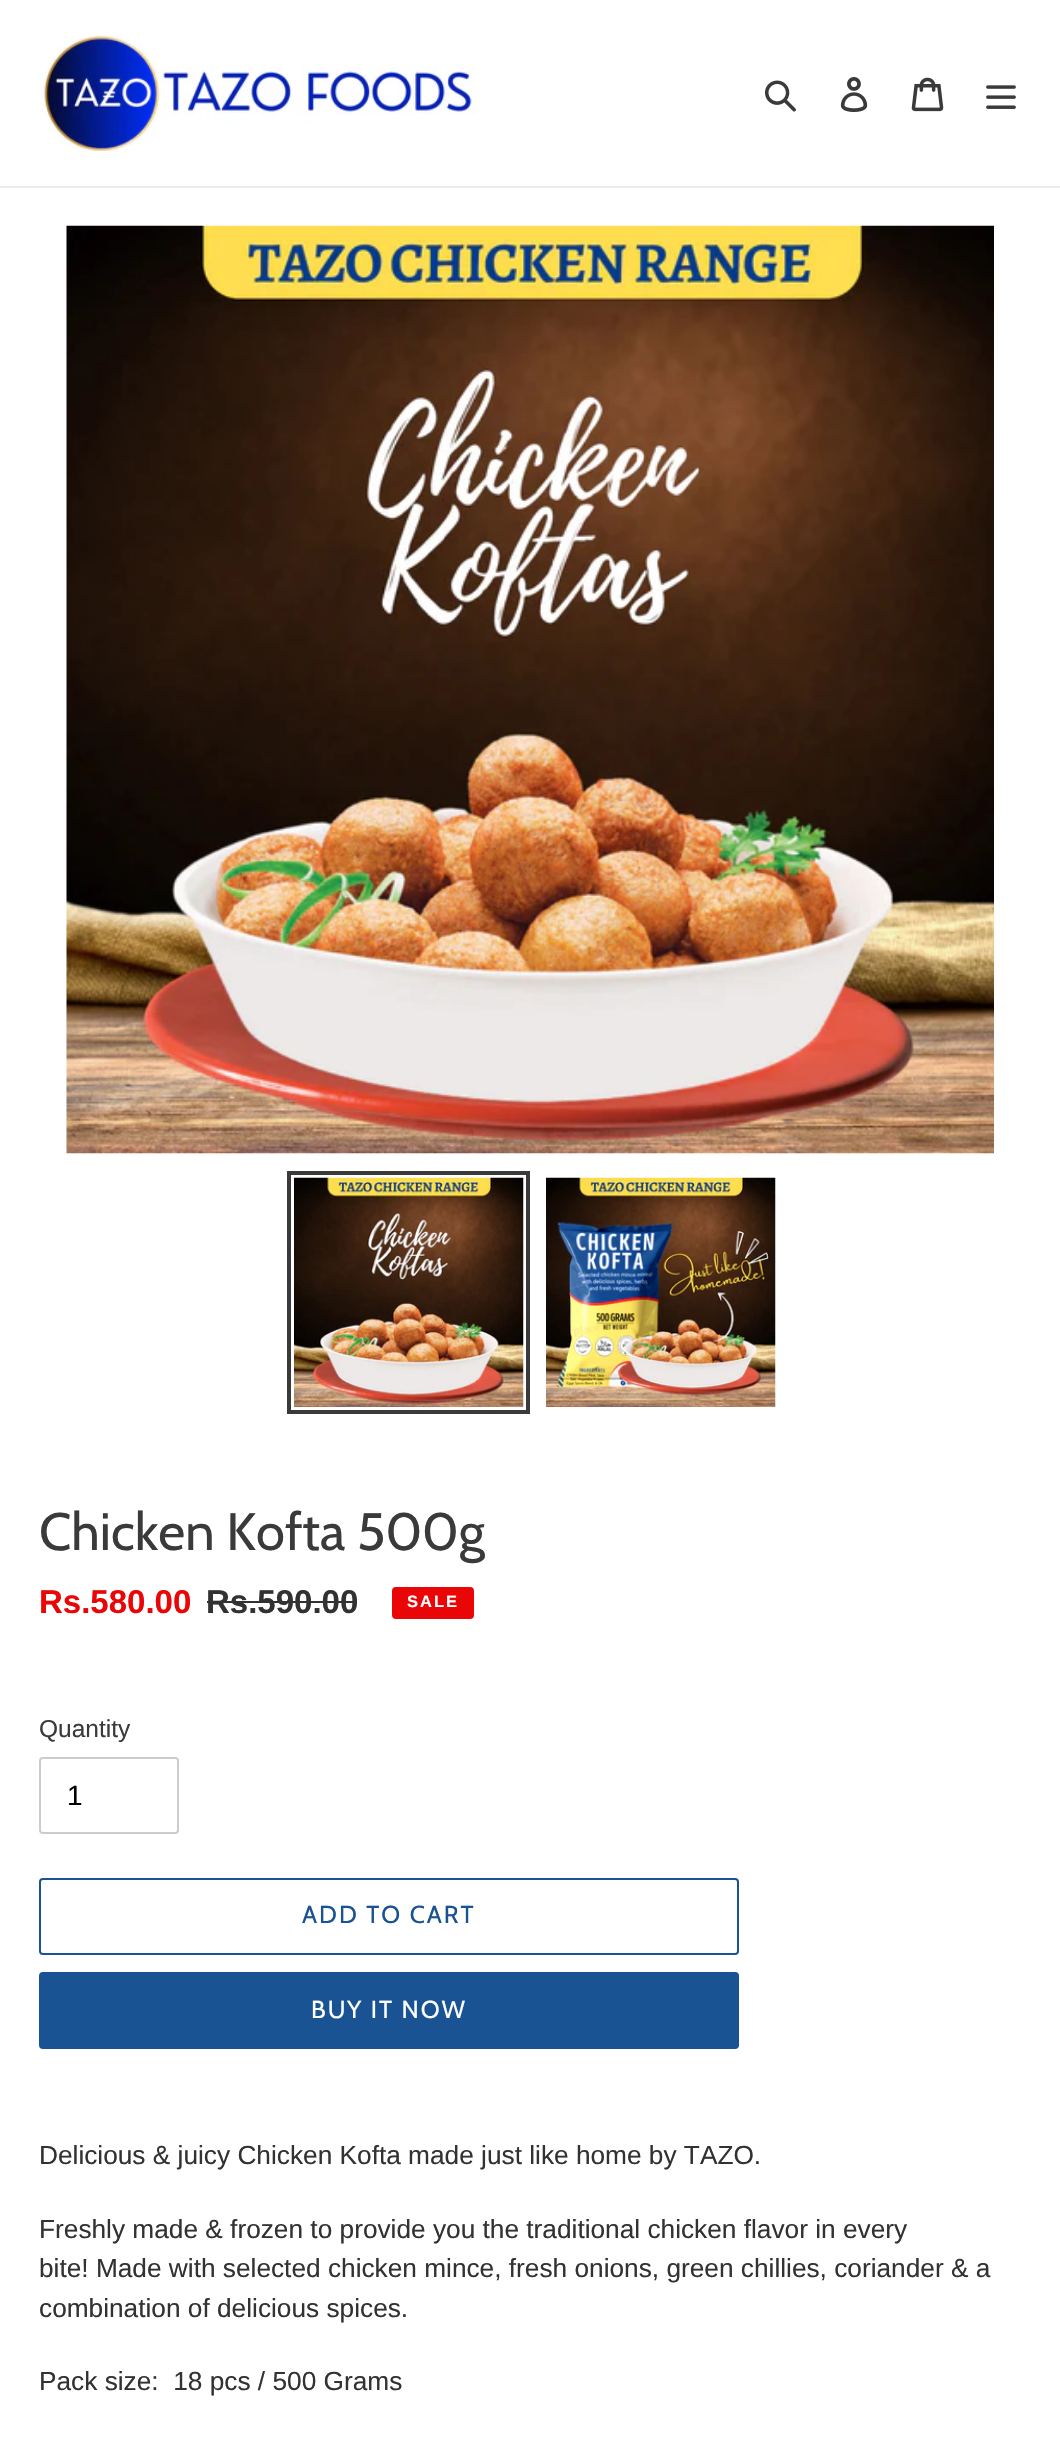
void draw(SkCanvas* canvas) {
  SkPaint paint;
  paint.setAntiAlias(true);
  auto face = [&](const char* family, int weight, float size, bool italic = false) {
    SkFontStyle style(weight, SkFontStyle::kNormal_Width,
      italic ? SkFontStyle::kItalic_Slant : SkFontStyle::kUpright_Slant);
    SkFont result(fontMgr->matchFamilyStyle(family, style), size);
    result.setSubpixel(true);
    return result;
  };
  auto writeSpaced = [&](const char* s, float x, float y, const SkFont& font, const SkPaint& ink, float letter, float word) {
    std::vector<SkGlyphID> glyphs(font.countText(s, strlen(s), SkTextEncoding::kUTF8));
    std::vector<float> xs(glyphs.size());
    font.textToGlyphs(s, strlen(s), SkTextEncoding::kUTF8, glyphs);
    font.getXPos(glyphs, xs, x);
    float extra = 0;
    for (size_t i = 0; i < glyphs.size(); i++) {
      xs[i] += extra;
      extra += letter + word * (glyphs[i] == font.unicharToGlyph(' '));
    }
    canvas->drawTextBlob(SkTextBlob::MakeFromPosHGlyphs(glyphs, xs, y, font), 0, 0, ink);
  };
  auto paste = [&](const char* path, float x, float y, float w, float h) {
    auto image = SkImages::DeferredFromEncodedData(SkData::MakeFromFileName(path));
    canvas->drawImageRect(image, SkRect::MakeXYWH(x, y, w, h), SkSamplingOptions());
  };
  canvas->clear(0xffffffff);
  paint.setColor(0xffebebeb);
  canvas->drawRect(SkRect::MakeXYWH(0, 186, 1060, 2), paint);
  paste("img/1.png", 39, 35, 437, 118);
  paste("img/2.png", 765, 80, 31, 32);
  paste("img/3.png", 840, 77, 28, 35);
  paste("img/4.png", 911, 77, 33, 35);
  paste("img/5.png", 986, 85, 30, 24);
  paste("img/6.png", 66, 225, 928, 929);
  paint.setStroke(true);
  paint.setStrokeWidth(4);
  paint.setColor(0xff3a3a3a);
  canvas->drawRect(SkRect::MakeXYWH(289, 1173, 239, 239), paint);
  paste("img/7.png", 294, 1177, 230, 230);
  paste("img/8.png", 546, 1177, 230, 230);
  paint.setStroke(false);
  paint.setColor(0xff333232);
  canvas->drawRect(SkRect::MakeXYWH(207, 1601, 150, 2), paint);
  paint.setColor(0xffea0606);
  canvas->drawRoundRect(SkRect::MakeXYWH(393, 1588, 80, 30), 3, 3, paint);
  paint.setStroke(true);
  paint.setStrokeWidth(2);
  canvas->drawRoundRect(SkRect::MakeXYWH(393, 1588, 80, 30), 3, 3, paint);
  paint.setColor(0xffcccccc);
  canvas->drawRoundRect(SkRect::MakeXYWH(40, 1758, 138, 75), 3, 3, paint);
  paint.setColor(0xff1a5394);
  canvas->drawRoundRect(SkRect::MakeXYWH(40, 1879, 698, 75), 3, 3, paint);
  paint.setStroke(false);
  canvas->drawRoundRect(SkRect::MakeXYWH(39, 1972, 700, 77), 4, 4, paint);
  auto f0 = face("Cabin", 400, 52.5f);
  paint.setColor(0xff3a3a3a);
  canvas->drawString("Chicken Kofta 500g", 39, 1550, f0, paint);
  auto f1 = face("Liberation Sans", 700, 33);
  paint.setColor(0xffea0606);
  canvas->drawString("Rs.580.00", 39, 1613, f1, paint);
  paint.setColor(0xff333232);
  canvas->drawString("Rs.590.00", 206, 1613, f1, paint);
  auto f2 = face("Liberation Sans", 700, 16.5f);
  paint.setColor(0xffffffff);
  writeSpaced("SALE", 407, 1607, f2, paint, 2, 0);
  auto f3 = face("Liberation Sans", 400, 24.5f);
  paint.setColor(0xff3a3a3a);
  canvas->drawString("Quantity", 39, 1737, f3, paint);
  auto f4 = face("Liberation Sans", 400, 28);
  paint.setColor(0xff000000);
  canvas->drawString("1", 67, 1805, f4, paint);
  auto f5 = face("Cabin", 400, 24.5f);
  paint.setColor(0xff1a5394);
  writeSpaced("ADD TO CART", 302, 1923, f5, paint, 2, 0);
  paint.setColor(0xffffffff);
  writeSpaced("BUY IT NOW", 311, 2018, f5, paint, 2, 0);
  auto f6 = face("Liberation Sans", 400, 26.25f);
  paint.setColor(0xff333232);
  {
    const struct { const char* s; float x, y; } items[] = {
      {"Delicious & juicy Chicken Kofta made just like home by TAZO.", 39, 2164},
      {"Freshly made & frozen to provide you the traditional chicken flavor in every", 39, 2238},
      {"bite! Made with selected chicken mince, fresh onions, green chillies, coriander & a", 39, 2277},
      {"combination of delicious spices.", 39, 2317},
      {"Pack size:  18 pcs / 500 Grams", 39, 2390},
    };
    for (auto [s, x, y] : items) {
      canvas->drawString(s, x, y, f6, paint);
    }
  }
}
